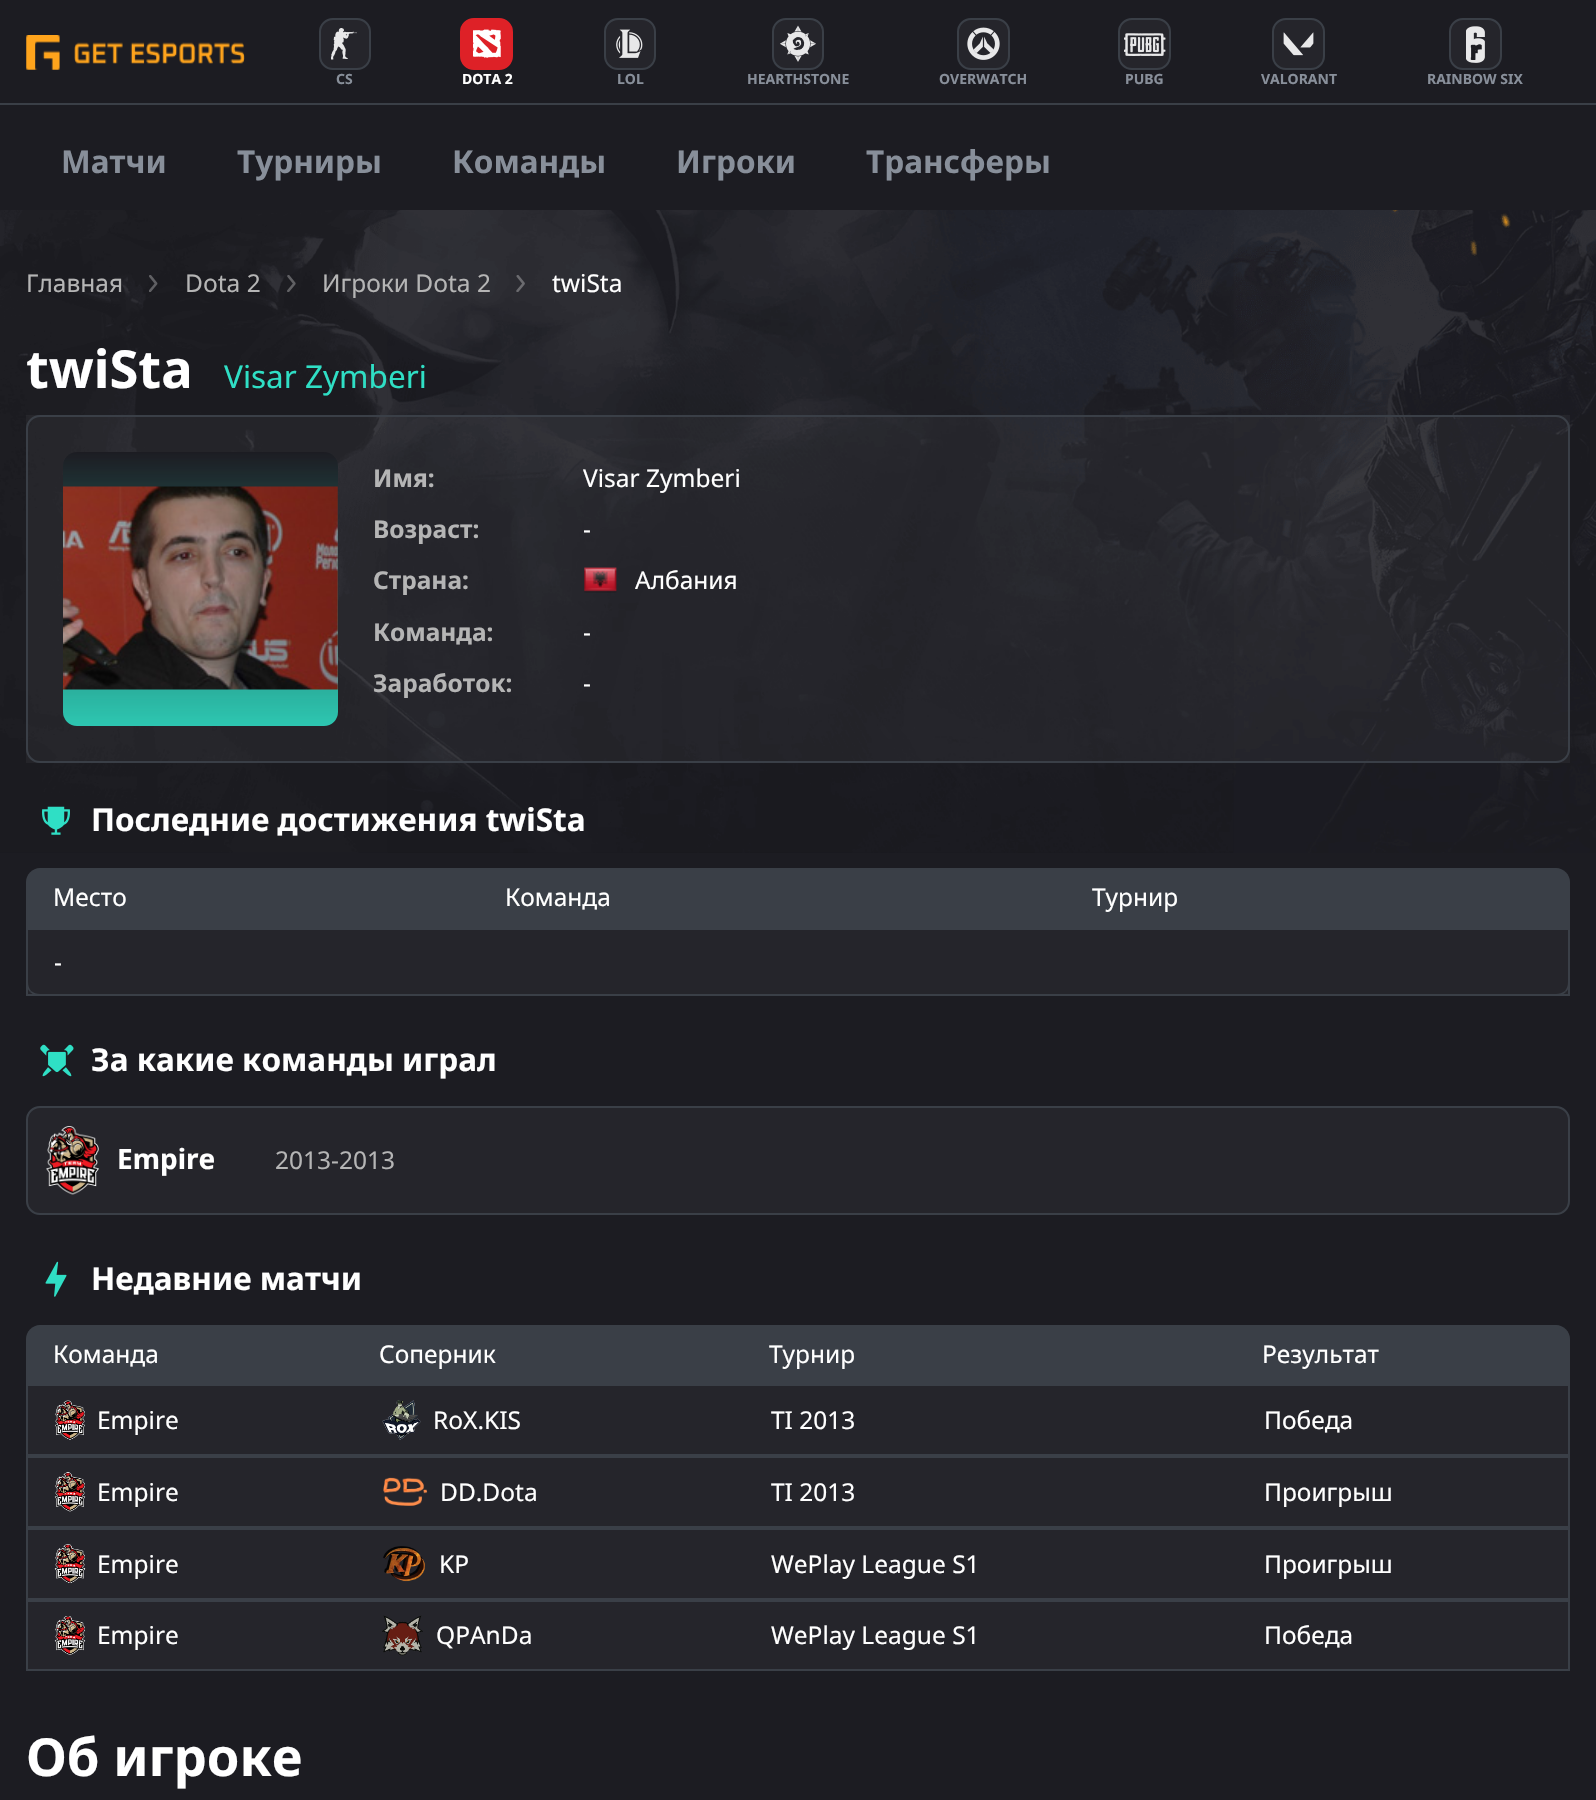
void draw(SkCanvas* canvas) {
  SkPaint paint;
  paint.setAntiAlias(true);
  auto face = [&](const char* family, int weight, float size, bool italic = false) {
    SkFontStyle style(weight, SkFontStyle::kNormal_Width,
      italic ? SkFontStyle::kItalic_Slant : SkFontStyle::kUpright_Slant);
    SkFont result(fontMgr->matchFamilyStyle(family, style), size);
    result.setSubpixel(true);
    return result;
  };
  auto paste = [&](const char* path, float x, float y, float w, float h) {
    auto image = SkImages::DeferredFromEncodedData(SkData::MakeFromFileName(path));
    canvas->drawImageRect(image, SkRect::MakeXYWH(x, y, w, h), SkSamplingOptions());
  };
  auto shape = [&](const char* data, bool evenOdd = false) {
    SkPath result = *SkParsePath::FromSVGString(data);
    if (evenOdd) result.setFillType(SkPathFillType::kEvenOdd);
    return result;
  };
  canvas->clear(0xff1c1c22);
  paste("img/1.png", 0, 210, 1596, 643);
  paste("img/2.png", 26, 35, 219, 35);
  paint.setColor(0xffde2127);
  canvas->drawRoundRect(SkRect::MakeXYWH(461, 19, 51, 50), 13, 13, paint);
  paint.setStroke(true);
  paint.setStrokeWidth(2);
  canvas->drawRoundRect(SkRect::MakeXYWH(461, 19, 51, 50), 13, 13, paint);
  paste("img/3.png", 473, 29, 28, 29);
  paint.setStroke(false);
  paint.setColor(0xff25252b);
  canvas->drawRoundRect(SkRect::MakeXYWH(320, 19, 50, 50), 13, 13, paint);
  paint.setStroke(true);
  paint.setColor(0xff3a3f47);
  canvas->drawRoundRect(SkRect::MakeXYWH(320, 19, 50, 50), 13, 13, paint);
  paste("img/4.png", 331, 28, 26, 32);
  paint.setStroke(false);
  paint.setColor(0xff25252b);
  canvas->drawRoundRect(SkRect::MakeXYWH(605, 19, 50, 50), 13, 13, paint);
  paint.setStroke(true);
  paint.setColor(0xff3a3f47);
  canvas->drawRoundRect(SkRect::MakeXYWH(605, 19, 50, 50), 13, 13, paint);
  paste("img/5.png", 616, 29, 27, 29);
  paint.setStroke(false);
  paint.setColor(0xff25252b);
  canvas->drawRoundRect(SkRect::MakeXYWH(773, 19, 50, 50), 13, 13, paint);
  paint.setStroke(true);
  paint.setColor(0xff3a3f47);
  canvas->drawRoundRect(SkRect::MakeXYWH(773, 19, 50, 50), 13, 13, paint);
  paste("img/6.png", 780, 25, 36, 37);
  paint.setStroke(false);
  paint.setColor(0xff25252b);
  canvas->drawRoundRect(SkRect::MakeXYWH(958, 19, 51, 50), 13, 13, paint);
  paint.setStroke(true);
  paint.setColor(0xff3a3f47);
  canvas->drawRoundRect(SkRect::MakeXYWH(958, 19, 51, 50), 13, 13, paint);
  paste("img/7.png", 967, 27, 33, 33);
  paint.setStroke(false);
  paint.setColor(0xff25252b);
  canvas->drawRoundRect(SkRect::MakeXYWH(1119, 19, 51, 50), 13, 13, paint);
  paint.setStroke(true);
  paint.setColor(0xff3a3f47);
  canvas->drawRoundRect(SkRect::MakeXYWH(1119, 19, 51, 50), 13, 13, paint);
  paste("img/8.png", 1124, 33, 42, 23);
  paint.setStroke(false);
  paint.setColor(0xff25252b);
  canvas->drawRoundRect(SkRect::MakeXYWH(1273, 19, 51, 50), 13, 13, paint);
  paint.setStroke(true);
  paint.setColor(0xff3a3f47);
  canvas->drawRoundRect(SkRect::MakeXYWH(1273, 19, 51, 50), 13, 13, paint);
  paste("img/9.png", 1283, 32, 31, 24);
  paint.setStroke(false);
  paint.setColor(0xff25252b);
  canvas->drawRoundRect(SkRect::MakeXYWH(1450, 19, 51, 50), 13, 13, paint);
  paint.setStroke(true);
  paint.setColor(0xff3a3f47);
  canvas->drawRoundRect(SkRect::MakeXYWH(1450, 19, 51, 50), 13, 13, paint);
  paste("img/10.png", 1466, 26, 19, 37);
  paint.setStroke(false);
  canvas->drawRect(SkRect::MakeXYWH(0, 103, 1596, 2), paint);
  paste("img/11.png", 149, 275, 9, 17);
  paste("img/12.png", 287, 275, 9, 17);
  paste("img/13.png", 516, 275, 9, 17);
  paint.setColor(0x0affffff);
  canvas->drawRect(SkRect::MakeXYWH(26, 415, 1544, 348), paint);
  paint.setStroke(true);
  paint.setColor(0xff3a3f47);
  canvas->drawRoundRect(SkRect::MakeXYWH(27, 416, 1542, 346), 13, 13, paint);
  paint.setStroke(false);
  paint.setColor(0xff1c1c22);
  canvas->drawRoundRect(SkRect::MakeXYWH(63, 452, 275, 274), 14, 14, paint);
  {
    const SkColor colors[] = {0xff2fdfc5, 0x002fdfc5};
    const float stops[] = {0, 1};
    const SkPoint ends[] = {{200, 766}, {200, 452}};
    paint.setShader(SkGradientShader::MakeLinear(ends, colors, stops, 2, SkTileMode::kClamp));
    paint.setAlpha(255);
  }
  canvas->drawRoundRect(SkRect::MakeXYWH(63, 452, 275, 274), 14, 14, paint);
  paste("img/14.png", 63, 486, 275, 204);
  paste("img/15.png", 584, 567, 33, 26);
  paste("img/16.png", 42, 806, 28, 29);
  paint.setShader(nullptr);
  paint.setColor(0xff3a3f47);
  canvas->drawPath(shape("M40 868H480V928H26V882C26 874.5 32.5 868 40 868Z"), paint);
  canvas->drawRect(SkRect::MakeXYWH(480, 868, 586, 60), paint);
  canvas->drawPath(shape("M1066 868H1556C1563.5 868 1570 874.5 1570 882V928H1066Z"), paint);
  paint.setColor(0xff25252b);
  canvas->drawRect(SkRect::MakeXYWH(27, 929, 1542, 66), paint);
  paint.setStroke(true);
  paint.setColor(0xff3a3f47);
  canvas->drawRect(SkRect::MakeXYWH(27, 929, 1542, 66), paint);
  paint.setStroke(false);
  canvas->drawPath(shape("M480 996H38C35 995 32 994 30 992L31 991C34 993 36 994 40 994H478Z"), paint);
  canvas->drawPath(shape("M26 928L28 929V982C28 986 29 988 31 991L30 992C28 990 27 987 26 984Z"), paint);
  canvas->drawPath(shape("M1570 984C1569 987 1568 990 1566 992L1565 991C1567 988 1568 986 1568 982V929L1570 928Z"), paint);
  canvas->drawPath(shape("M1066 996L1068 994H1556C1560 994 1562 993 1565 991L1566 992C1564 994 1561 995 1558 996Z"), paint);
  paste("img/17.png", 40, 1044, 34, 33);
  paint.setColor(0xff25252b);
  canvas->drawRoundRect(SkRect::MakeXYWH(27, 1107, 1542, 107), 13, 13, paint);
  paint.setStroke(true);
  paint.setColor(0xff3a3f47);
  canvas->drawRoundRect(SkRect::MakeXYWH(27, 1107, 1542, 107), 13, 13, paint);
  paste("img/18.png", 46, 1126, 53, 69);
  paste("img/19.png", 45, 1261, 22, 36);
  paint.setStroke(false);
  canvas->drawPath(shape("M40 1325H354V1384H26V1339C26 1331.5 32.5 1325 40 1325Z"), paint);
  canvas->drawRect(SkRect::MakeXYWH(354, 1325, 882, 59), paint);
  canvas->drawPath(shape("M1236 1325H1556C1563.5 1325 1570 1331.5 1570 1339V1384H1236Z"), paint);
  paint.setColor(0xff25252b);
  canvas->drawRect(SkRect::MakeXYWH(27, 1385, 1542, 70), paint);
  paint.setStroke(true);
  paint.setColor(0xff3a3f47);
  canvas->drawRect(SkRect::MakeXYWH(27, 1385, 1542, 70), paint);
  paste("img/20.png", 55, 1400, 30, 40);
  paste("img/21.png", 382, 1400, 39, 40);
  paint.setStroke(false);
  paint.setColor(0xff25252b);
  canvas->drawRect(SkRect::MakeXYWH(27, 1457, 1542, 70), paint);
  paint.setStroke(true);
  paint.setColor(0xff3a3f47);
  canvas->drawRect(SkRect::MakeXYWH(27, 1457, 1542, 70), paint);
  paste("img/22.png", 54, 1472, 32, 40);
  paste("img/23.png", 383, 1477, 45, 29);
  paint.setStroke(false);
  paint.setColor(0xff25252b);
  canvas->drawRect(SkRect::MakeXYWH(27, 1529, 1542, 70), paint);
  paint.setStroke(true);
  paint.setColor(0xff3a3f47);
  canvas->drawRect(SkRect::MakeXYWH(27, 1529, 1542, 70), paint);
  paste("img/24.png", 54, 1544, 32, 39);
  paste("img/25.png", 383, 1546, 42, 36);
  paint.setStroke(false);
  paint.setColor(0xff25252b);
  canvas->drawRect(SkRect::MakeXYWH(27, 1601, 1542, 69), paint);
  paint.setStroke(true);
  paint.setColor(0xff3a3f47);
  canvas->drawRect(SkRect::MakeXYWH(27, 1601, 1542, 69), paint);
  paste("img/26.png", 54, 1616, 32, 39);
  paste("img/27.png", 382, 1615, 41, 41);
  auto f0 = face("Noto Sans", 700, 14);
  paint.setStroke(false);
  paint.setColor(0xffffffff);
  canvas->drawString("DOTA 2", 462, 84, f0, paint);
  auto f1 = face("Noto Sans", 700, 31.5f);
  paint.setColor(0xff888f9a);
  {
    const struct { const char* s; float x, y; } items[] = {
      {"Матчи", 61, 173},
      {"Турниры", 237, 173},
      {"Команды", 452, 173},
      {"Игроки", 676, 173},
      {"Трансферы", 866, 173},
    };
    for (auto [s, x, y] : items) {
      canvas->drawString(s, x, y, f1, paint);
    }
  }
  {
    const struct { const char* s; float x, y; } items[] = {
      {"CS", 336, 84},
      {"LOL", 617, 84},
      {"HEARTHSTONE", 747, 84},
      {"OVERWATCH", 939, 84},
      {"PUBG", 1125, 84},
      {"VALORANT", 1261, 84},
      {"RAINBOW SIX", 1427, 84},
    };
    for (auto [s, x, y] : items) {
      canvas->drawString(s, x, y, f0, paint);
    }
  }
  auto f2 = face("Noto Sans", 400, 24.5f);
  paint.setColor(0xffb5b5b5);
  {
    const struct { const char* s; float x, y; } items[] = {
      {"Главная", 26, 292},
      {"Dota 2", 185, 292},
      {"Игроки Dota 2", 322, 292},
    };
    for (auto [s, x, y] : items) {
      canvas->drawString(s, x, y, f2, paint);
    }
  }
  paint.setColor(0xffffffff);
  canvas->drawString("twiSta", 552, 292, f2, paint);
  auto f3 = face("Noto Sans", 700, 52.5f);
  canvas->drawString("twiSta", 26, 388, f3, paint);
  auto f4 = face("Noto Sans", 400, 31.5f);
  paint.setColor(0xff2fdfc5);
  canvas->drawString("Visar Zymberi", 224, 388, f4, paint);
  auto f5 = face("Noto Sans", 700, 24.5f);
  paint.setColor(0xffb5b5b5);
  canvas->drawString("Имя:", 373, 487, f5, paint);
  paint.setColor(0xffffffff);
  canvas->drawString("Visar Zymberi", 583, 487, f2, paint);
  paint.setColor(0xffb5b5b5);
  canvas->drawString("Возраст:", 373, 538, f5, paint);
  paint.setColor(0xffffffff);
  canvas->drawString("-", 583, 538, f2, paint);
  paint.setColor(0xffb5b5b5);
  canvas->drawString("Страна:", 373, 589, f5, paint);
  paint.setColor(0xffffffff);
  canvas->drawString("Албания", 635, 589, f2, paint);
  paint.setColor(0xffb5b5b5);
  canvas->drawString("Команда:", 373, 641, f5, paint);
  paint.setColor(0xffffffff);
  canvas->drawString("-", 583, 641, f2, paint);
  paint.setColor(0xffb5b5b5);
  canvas->drawString("Заработок:", 373, 692, f5, paint);
  paint.setColor(0xffffffff);
  canvas->drawString("-", 583, 692, f2, paint);
  canvas->drawString("Последние достижения twiSta", 91, 831, f1, paint);
  {
    const struct { const char* s; float x, y; } items[] = {
      {"Место", 53, 906},
      {"Команда", 505, 906},
      {"Турнир", 1092, 906},
      {"-", 54, 971},
    };
    for (auto [s, x, y] : items) {
      canvas->drawString(s, x, y, f2, paint);
    }
  }
  canvas->drawString("За какие команды играл", 91, 1071, f1, paint);
  auto f6 = face("Noto Sans", 700, 28);
  canvas->drawString("Empire", 117, 1169, f6, paint);
  paint.setColor(0xffb5b5b5);
  canvas->drawString("2013-2013", 275, 1169, f2, paint);
  paint.setColor(0xffffffff);
  canvas->drawString("Недавние матчи", 91, 1290, f1, paint);
  {
    const struct { const char* s; float x, y; } items[] = {
      {"Команда", 53, 1363},
      {"Соперник", 379, 1363},
      {"Турнир", 769, 1363},
      {"Результат", 1262, 1363},
      {"Empire", 97, 1429},
      {"RoX.KIS", 433, 1429},
      {"TI 2013", 771, 1429},
      {"Победа", 1264, 1429},
      {"Empire", 97, 1501},
      {"DD.Dota", 440, 1501},
      {"TI 2013", 771, 1501},
      {"Проигрыш", 1264, 1501},
      {"Empire", 97, 1573},
      {"KP", 439, 1573},
      {"WePlay League S1", 771, 1573},
      {"Проигрыш", 1264, 1573},
      {"Empire", 97, 1644},
      {"QPAnDa", 436, 1644},
      {"WePlay League S1", 771, 1644},
      {"Победа", 1264, 1644},
    };
    for (auto [s, x, y] : items) {
      canvas->drawString(s, x, y, f2, paint);
    }
  }
  canvas->drawString("Об игроке", 26, 1776, f3, paint);
}
